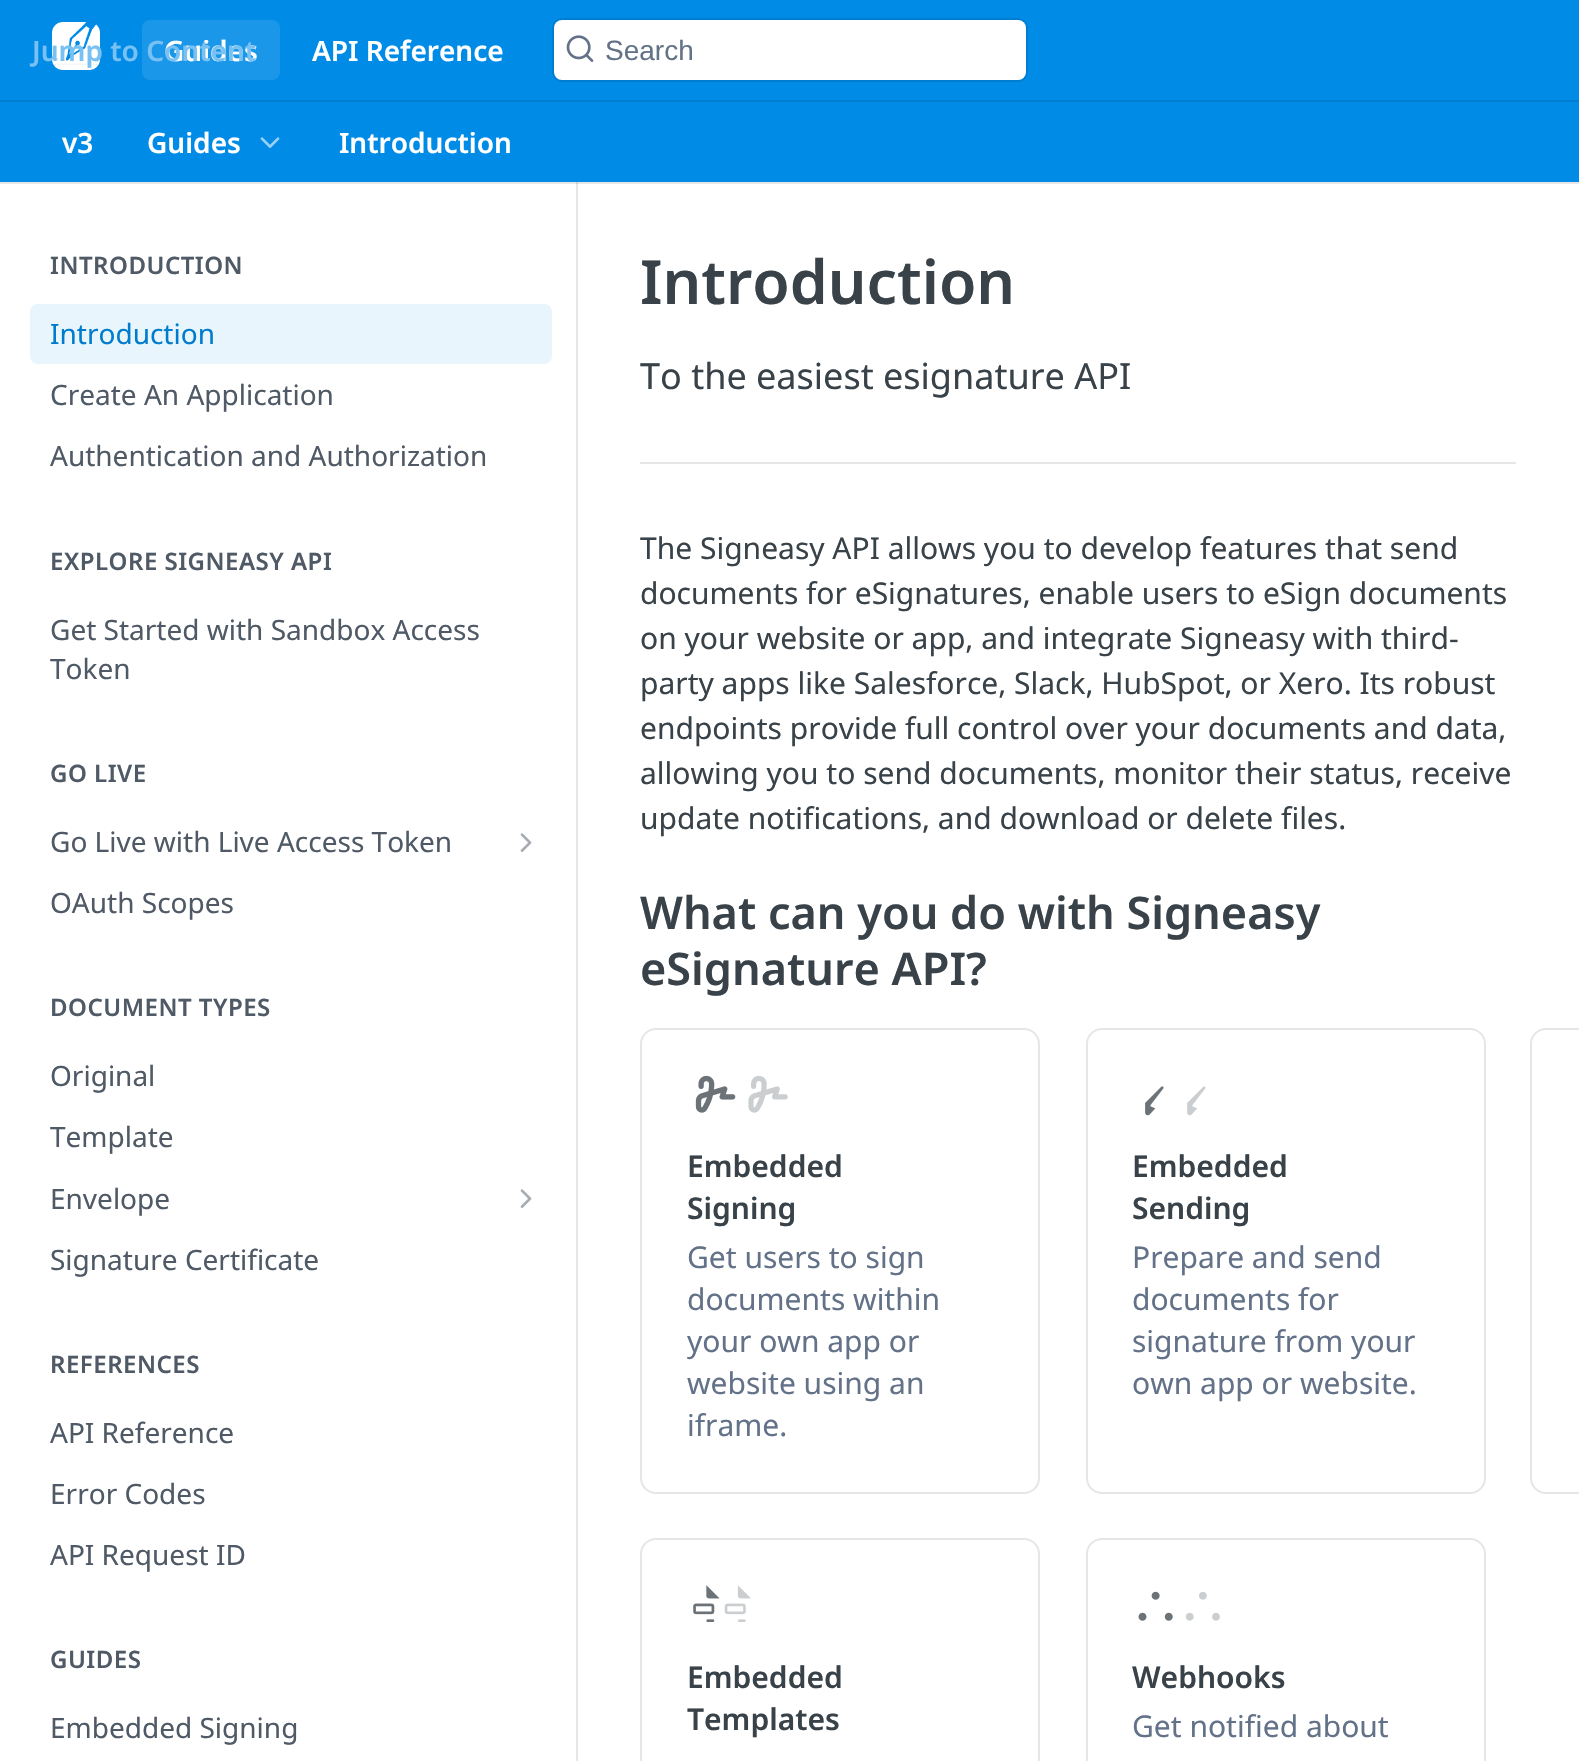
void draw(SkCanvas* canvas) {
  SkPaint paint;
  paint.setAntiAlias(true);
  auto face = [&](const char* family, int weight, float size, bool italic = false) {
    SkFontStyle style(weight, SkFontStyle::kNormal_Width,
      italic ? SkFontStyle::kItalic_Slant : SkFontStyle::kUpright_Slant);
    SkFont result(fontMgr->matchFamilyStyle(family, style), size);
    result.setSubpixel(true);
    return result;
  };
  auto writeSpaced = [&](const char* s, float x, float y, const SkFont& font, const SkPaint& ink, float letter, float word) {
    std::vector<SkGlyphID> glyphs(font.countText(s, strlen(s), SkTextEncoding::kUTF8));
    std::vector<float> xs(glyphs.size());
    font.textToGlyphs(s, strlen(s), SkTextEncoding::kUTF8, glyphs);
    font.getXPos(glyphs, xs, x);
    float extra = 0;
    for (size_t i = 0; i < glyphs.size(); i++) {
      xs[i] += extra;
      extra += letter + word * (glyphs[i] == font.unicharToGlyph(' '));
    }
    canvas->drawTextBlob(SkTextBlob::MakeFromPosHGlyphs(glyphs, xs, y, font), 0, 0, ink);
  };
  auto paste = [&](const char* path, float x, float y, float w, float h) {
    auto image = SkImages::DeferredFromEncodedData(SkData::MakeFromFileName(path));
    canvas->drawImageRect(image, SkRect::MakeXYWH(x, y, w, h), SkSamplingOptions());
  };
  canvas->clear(0xffffffff);
  {
    const struct { float x, y, w, h; SkColor color; } items[] = {
      {0, 182, 1579, 2, 0xffe6e6e6},
      {0, 0, 1579, 182, 0xff008be7},
      {0, 100, 1579, 2, 0xff007dd0},
    };
    for (auto [x, y, w, h, color] : items) {
      paint.setColor(color);
      canvas->drawRect(SkRect::MakeXYWH(x, y, w, h), paint);
    }
  }
  paste("img/1.png", 52, 22, 48, 48);
  paint.setColor(0xff1a97e9);
  canvas->drawRoundRect(SkRect::MakeXYWH(142, 20, 138, 60), 8, 8, paint);
  paint.setStroke(true);
  paint.setStrokeWidth(2);
  paint.setColor(0xff007dd0);
  canvas->drawRoundRect(SkRect::MakeXYWH(553, 19, 474, 62), 9, 9, paint);
  paint.setStroke(false);
  paint.setColor(0xffffffff);
  canvas->drawRoundRect(SkRect::MakeXYWH(554, 20, 472, 60), 8, 8, paint);
  paste("img/2.png", 566, 35, 28, 27);
  paste("img/3.png", 260, 137, 20, 11);
  paint.setColor(0xffe6e6e6);
  canvas->drawRect(SkRect::MakeXYWH(576, 182, 2, 1579), paint);
  paint.setColor(0xffcfcfcf);
  canvas->drawRect(SkRect::MakeXYWH(576, 182, 2, 2), paint);
  paint.setColor(0xffe8f5fd);
  canvas->drawRoundRect(SkRect::MakeXYWH(30, 304, 522, 60), 8, 8, paint);
  paste("img/4.png", 520, 833, 12, 19);
  paste("img/4.png", 520, 1189, 12, 19);
  paint.setColor(0xffe6e6e6);
  canvas->drawRect(SkRect::MakeXYWH(640, 462, 876, 2), paint);
  paint.setStroke(true);
  canvas->drawRoundRect(SkRect::MakeXYWH(641, 1029, 398, 464), 15, 15, paint);
  paste("img/5.png", 695, 1075, 41, 38);
  paste("img/6.png", 695, 1075, 93, 38);
  canvas->drawRoundRect(SkRect::MakeXYWH(1087, 1029, 398, 464), 15, 15, paint);
  paste("img/7.png", 1145, 1086, 19, 30);
  paste("img/8.png", 1145, 1086, 61, 30);
  canvas->drawRoundRect(SkRect::MakeXYWH(1531, 1029, 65, 464), 15, 15, paint);
  canvas->drawRoundRect(SkRect::MakeXYWH(641, 1539, 398, 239), 15, 15, paint);
  paste("img/9.png", 693, 1585, 27, 37);
  paste("img/10.png", 693, 1585, 58, 37);
  canvas->drawRoundRect(SkRect::MakeXYWH(1087, 1539, 398, 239), 15, 15, paint);
  paste("img/11.png", 1138, 1591, 35, 30);
  paste("img/12.png", 1138, 1591, 82, 30);
  auto f0 = face("Noto Sans", 600, 28);
  paint.setStroke(false);
  paint.setColor(0xffffffff);
  canvas->drawString("Guides", 164, 61, f0, paint);
  paint.setColor(0xff78c1f2);
  canvas->drawString("Jump to Content", 32, 61, f0, paint);
  paint.setColor(0xffffffff);
  canvas->drawString("API Reference", 312, 61, f0, paint);
  auto f1 = face("Liberation Sans", 400, 28);
  paint.setColor(0xff637288);
  canvas->drawString("Search", 605, 60, f1, paint);
  paint.setColor(0xffffffff);
  {
    const struct { const char* s; float x, y; } items[] = {
      {"v3", 62, 153},
      {"Guides", 147, 153},
      {"Introduction", 339, 153},
    };
    for (auto [s, x, y] : items) {
      canvas->drawString(s, x, y, f0, paint);
    }
  }
  auto f2 = face("Noto Sans", 600, 24);
  paint.setColor(0xff4f5a66);
  writeSpaced("INTRODUCTION", 50, 274, f2, paint, 0.5f, 0);
  auto f3 = face("Noto Sans", 400, 28);
  paint.setColor(0xff007ccd);
  canvas->drawString("Introduction", 50, 344, f3, paint);
  paint.setColor(0xff4f5a66);
  canvas->drawString("Create An Application", 50, 405, f3, paint);
  canvas->drawString("Authentication and Authorization", 50, 466, f3, paint);
  writeSpaced("EXPLORE SIGNEASY API", 50, 570, f2, paint, 0.5f, 0);
  canvas->drawString("Get Started with Sandbox Access", 50, 640, f3, paint);
  canvas->drawString("Token", 50, 679, f3, paint);
  writeSpaced("GO LIVE", 50, 782, f2, paint, 0.5f, 0);
  canvas->drawString("Go Live with Live Access Token", 50, 852, f3, paint);
  canvas->drawString("OAuth Scopes", 50, 913, f3, paint);
  writeSpaced("DOCUMENT TYPES", 50, 1016, f2, paint, 0.5f, 0);
  {
    const struct { const char* s; float x, y; } items[] = {
      {"Original", 50, 1086},
      {"Template", 50, 1147},
      {"Envelope", 50, 1209},
      {"Signature Certificate", 50, 1270},
    };
    for (auto [s, x, y] : items) {
      canvas->drawString(s, x, y, f3, paint);
    }
  }
  writeSpaced("REFERENCES", 50, 1373, f2, paint, 0.5f, 0);
  {
    const struct { const char* s; float x, y; } items[] = {
      {"API Reference", 50, 1443},
      {"Error Codes", 50, 1504},
      {"API Request ID", 50, 1565},
    };
    for (auto [s, x, y] : items) {
      canvas->drawString(s, x, y, f3, paint);
    }
  }
  writeSpaced("GUIDES", 50, 1668, f2, paint, 0.5f, 0);
  canvas->drawString("Embedded Signing", 50, 1738, f3, paint);
  auto f4 = face("Noto Sans", 600, 60.75f);
  paint.setColor(0xff384248);
  canvas->drawString("Introduction", 640, 304, f4, paint);
  auto f5 = face("Noto Sans", 400, 36);
  canvas->drawString("To the easiest esignature API", 640, 389, f5, paint);
  auto f6 = face("Noto Sans", 400, 30);
  {
    const struct { const char* s; float x, y; } items[] = {
      {"The Signeasy API allows you to develop features that send", 640, 559},
      {"documents for eSignatures, enable users to eSign documents", 640, 604},
      {"on your website or app, and integrate Signeasy with third-", 640, 649},
      {"party apps like Salesforce, Slack, HubSpot, or Xero. Its robust", 640, 694},
      {"endpoints provide full control over your documents and data,", 640, 739},
      {"allowing you to send documents, monitor their status, receive", 640, 784},
      {"update notifications, and download or delete files.", 640, 829},
    };
    for (auto [s, x, y] : items) {
      canvas->drawString(s, x, y, f6, paint);
    }
  }
  auto f7 = face("Noto Sans", 600, 45);
  canvas->drawString("What can you do with Signeasy", 640, 929, f7, paint);
  canvas->drawString("eSignature API?", 640, 985, f7, paint);
  auto f8 = face("Noto Sans", 600, 30);
  canvas->drawString("Embedded", 687, 1177, f8, paint);
  canvas->drawString("Signing", 687, 1219, f8, paint);
  paint.setColor(0xff637288);
  {
    const struct { const char* s; float x, y; } items[] = {
      {"Get users to sign", 687, 1268},
      {"documents within", 687, 1310},
      {"your own app or", 687, 1352},
      {"website using an", 687, 1394},
      {"iframe.", 687, 1436},
    };
    for (auto [s, x, y] : items) {
      canvas->drawString(s, x, y, f6, paint);
    }
  }
  paint.setColor(0xff384248);
  canvas->drawString("Embedded", 1132, 1177, f8, paint);
  canvas->drawString("Sending", 1132, 1219, f8, paint);
  paint.setColor(0xff637288);
  {
    const struct { const char* s; float x, y; } items[] = {
      {"Prepare and send", 1132, 1268},
      {"documents for", 1132, 1310},
      {"signature from your", 1132, 1352},
      {"own app or website.", 1132, 1394},
    };
    for (auto [s, x, y] : items) {
      canvas->drawString(s, x, y, f6, paint);
    }
  }
  paint.setColor(0xff384248);
  {
    const struct { const char* s; float x, y; } items[] = {
      {"Embedded", 687, 1688},
      {"Templates", 687, 1730},
      {"Webhooks", 1132, 1688},
    };
    for (auto [s, x, y] : items) {
      canvas->drawString(s, x, y, f8, paint);
    }
  }
  paint.setColor(0xff637288);
  canvas->drawString("Get notified about", 1132, 1737, f6, paint);
}
